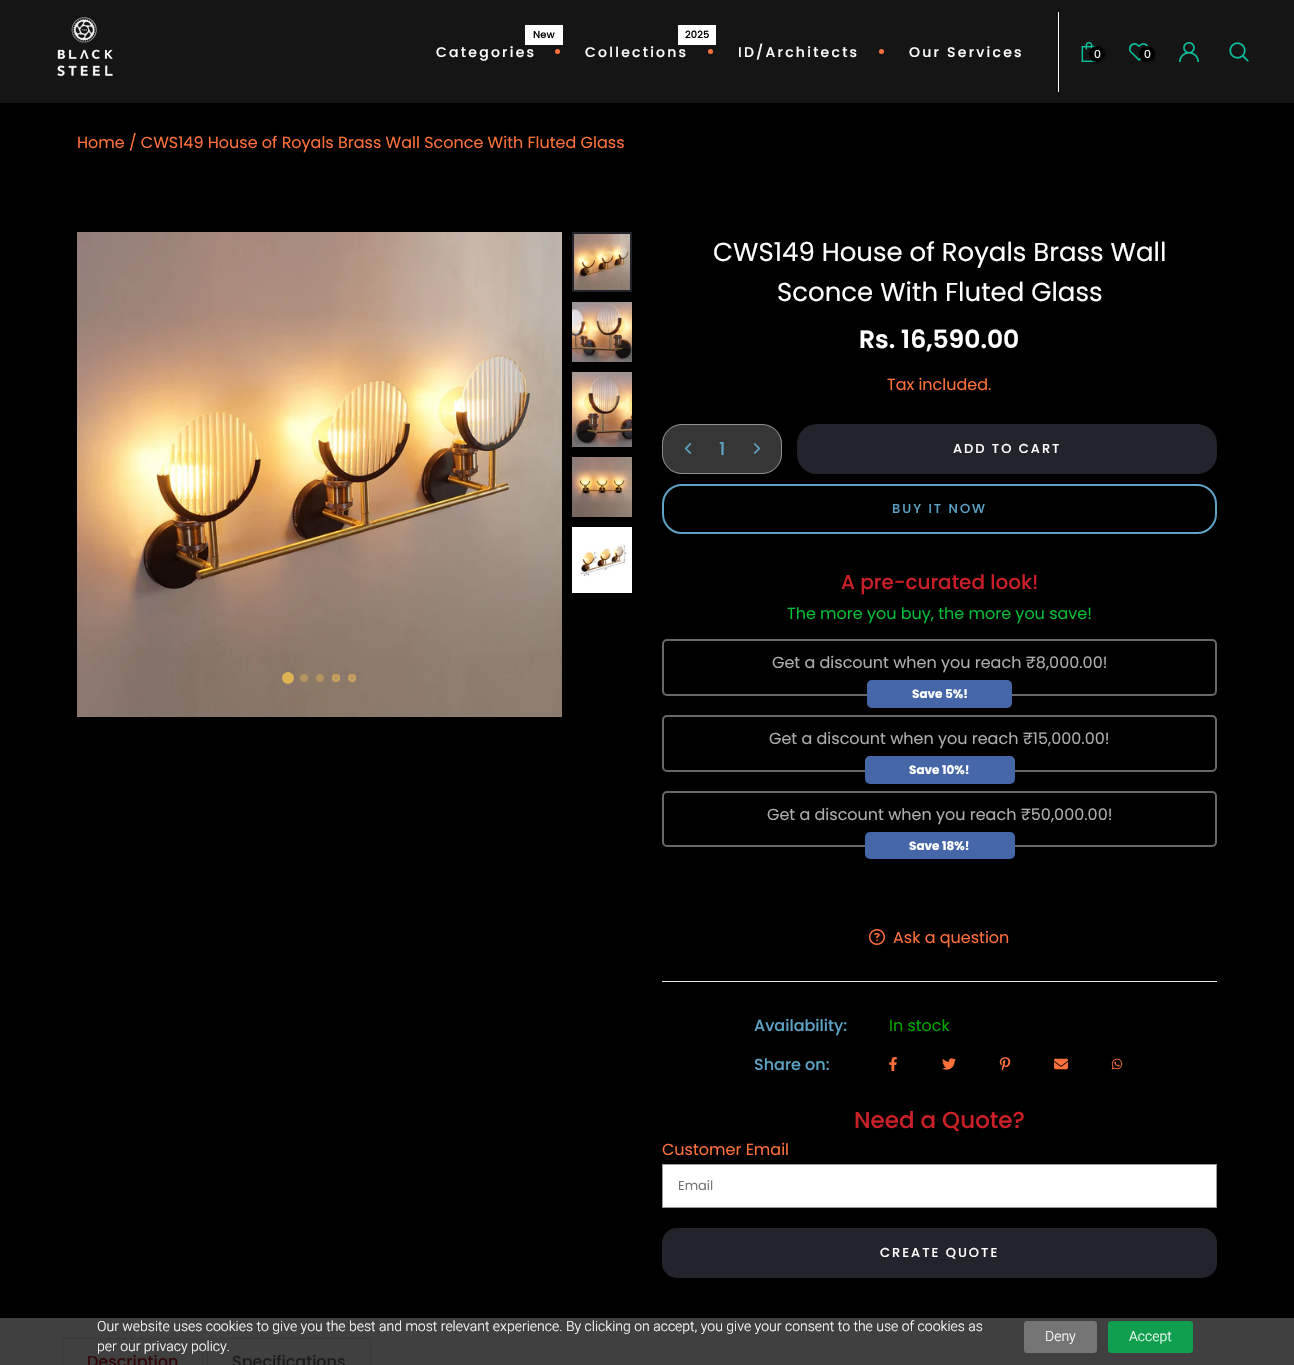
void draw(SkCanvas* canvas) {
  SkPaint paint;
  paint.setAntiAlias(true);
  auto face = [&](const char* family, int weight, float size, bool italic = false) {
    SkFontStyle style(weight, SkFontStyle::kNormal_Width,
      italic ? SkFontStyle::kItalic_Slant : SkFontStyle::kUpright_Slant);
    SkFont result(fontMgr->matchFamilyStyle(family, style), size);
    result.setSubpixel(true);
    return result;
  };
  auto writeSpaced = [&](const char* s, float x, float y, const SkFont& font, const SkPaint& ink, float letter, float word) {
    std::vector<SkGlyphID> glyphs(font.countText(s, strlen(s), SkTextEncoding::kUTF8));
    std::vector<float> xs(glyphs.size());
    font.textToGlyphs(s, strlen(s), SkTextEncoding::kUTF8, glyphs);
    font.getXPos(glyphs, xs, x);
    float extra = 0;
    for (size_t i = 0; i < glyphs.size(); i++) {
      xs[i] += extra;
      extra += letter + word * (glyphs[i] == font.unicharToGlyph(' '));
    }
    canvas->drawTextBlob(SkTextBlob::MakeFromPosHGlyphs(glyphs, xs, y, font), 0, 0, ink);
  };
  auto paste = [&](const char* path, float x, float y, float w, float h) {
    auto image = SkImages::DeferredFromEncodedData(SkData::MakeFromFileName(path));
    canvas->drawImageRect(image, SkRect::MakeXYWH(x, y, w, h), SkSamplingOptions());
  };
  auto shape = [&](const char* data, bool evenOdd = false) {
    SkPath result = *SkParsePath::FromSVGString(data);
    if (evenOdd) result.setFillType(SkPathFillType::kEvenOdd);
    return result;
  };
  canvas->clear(0xff000000);
  paint.setColor(0xff151515);
  canvas->drawRect(SkRect::MakeXYWH(0, 0, 1294, 103), paint);
  paste("img/1.png", 57, 17, 56, 60);
  paint.setColor(0xffffffff);
  canvas->drawRect(SkRect::MakeXYWH(525, 25, 38, 20), paint);
  paint.setColor(0xffff713c);
  canvas->drawCircle(557.5f, 51.5f, 2.5f, paint);
  paint.setColor(0xffffffff);
  canvas->drawRect(SkRect::MakeXYWH(678, 25, 38, 20), paint);
  paint.setColor(0xffff713c);
  canvas->drawCircle(710.5f, 51.5f, 2.5f, paint);
  canvas->drawCircle(881.5f, 51.5f, 2.5f, paint);
  paint.setColor(0xffffffff);
  canvas->drawRect(SkRect::MakeXYWH(1058, 12, 1, 80), paint);
  paste("img/2.png", 1081, 42, 16, 20);
  paint.setColor(0x4d000000);
  paint.setMaskFilter(SkMaskFilter::MakeBlur(kNormal_SkBlurStyle, 1.5f));
  canvas->drawRoundRect(SkRect::MakeXYWH(1090, 47, 16, 16), 8, 8, paint);
  paint.setMaskFilter(nullptr);
  paint.setColor(0xff000000);
  canvas->drawCircle(1097, 54, 8, paint);
  paste("img/3.png", 1129, 43, 20, 18);
  paint.setColor(0x4d000000);
  paint.setMaskFilter(SkMaskFilter::MakeBlur(kNormal_SkBlurStyle, 1.5f));
  canvas->drawRoundRect(SkRect::MakeXYWH(1140, 47, 16, 16), 8, 8, paint);
  paint.setMaskFilter(nullptr);
  paint.setColor(0xff000000);
  canvas->drawCircle(1147, 54, 8, paint);
  paste("img/4.png", 1179, 42, 20, 20);
  paste("img/5.png", 1229, 42, 20, 20);
  paste("img/6.png", 77, 232, 485, 485);
  paint.setColor(0xffe0b252);
  canvas->drawCircle(288, 678, 4.5f, paint);
  paint.setStroke(true);
  paint.setStrokeWidth(3);
  canvas->drawCircle(288, 678, 4.5f, paint);
  paint.setStroke(false);
  paint.setColor(0xffb5955e);
  canvas->drawCircle(304, 678, 3, paint);
  paint.setStroke(true);
  paint.setStrokeWidth(2);
  canvas->drawCircle(304, 678, 3, paint);
  paint.setStroke(false);
  canvas->drawCircle(320, 678, 3, paint);
  paint.setStroke(true);
  canvas->drawCircle(320, 678, 3, paint);
  paint.setStroke(false);
  paint.setColor(0x80e0b252);
  canvas->drawCircle(336, 678, 4, paint);
  paint.setStroke(true);
  canvas->drawCircle(336, 678, 3, paint);
  paint.setStroke(false);
  canvas->drawCircle(352, 678, 4, paint);
  paint.setStroke(true);
  canvas->drawCircle(352, 678, 3, paint);
  paste("img/7.png", 574, 234, 56, 56);
  paint.setColor(0xff23232c);
  canvas->drawRect(SkRect::MakeXYWH(573, 233, 58, 58), paint);
  paste("img/8.png", 572, 302, 60, 60);
  paste("img/9.png", 572, 372, 60, 75);
  paste("img/10.png", 572, 457, 60, 60);
  paste("img/11.png", 572, 527, 60, 66);
  paint.setStroke(false);
  paint.setColor(0xff363636);
  canvas->drawRoundRect(SkRect::MakeXYWH(662, 424, 120, 50), 20, 20, paint);
  paint.setStroke(true);
  paint.setStrokeWidth(1);
  paint.setColor(0xe6999999);
  canvas->drawRoundRect(SkRect::MakeXYWH(662.5f, 424.5f, 119, 49), 19.5f, 19.5f, paint);
  paste("img/12.png", 684, 443, 8, 11);
  paste("img/13.png", 753, 443, 8, 11);
  paint.setStroke(false);
  paint.setColor(0xff23232c);
  canvas->drawRoundRect(SkRect::MakeXYWH(797, 424, 420, 50), 20, 20, paint);
  paint.setStroke(true);
  paint.setStrokeWidth(2);
  paint.setColor(0xff5ca3c5);
  canvas->drawRoundRect(SkRect::MakeXYWH(663, 485, 553, 48), 19, 19, paint);
  paint.setColor(0xff686868);
  canvas->drawRoundRect(SkRect::MakeXYWH(663, 640, 553, 55), 4, 4, paint);
  paint.setStroke(false);
  paint.setColor(0xff4667a7);
  canvas->drawRoundRect(SkRect::MakeXYWH(867, 680, 145, 28), 5, 5, paint);
  paint.setStroke(true);
  paint.setColor(0xff686868);
  canvas->drawRoundRect(SkRect::MakeXYWH(663, 716, 553, 55), 4, 4, paint);
  paint.setStroke(false);
  paint.setColor(0xff4667a7);
  canvas->drawRoundRect(SkRect::MakeXYWH(865, 756, 150, 28), 5, 5, paint);
  paint.setStroke(true);
  paint.setColor(0xff686868);
  canvas->drawRoundRect(SkRect::MakeXYWH(663, 792, 553, 54), 4, 4, paint);
  paint.setStroke(false);
  paint.setColor(0xff4667a7);
  canvas->drawRoundRect(SkRect::MakeXYWH(865, 832, 150, 27), 5, 5, paint);
  paste("img/14.png", 869, 929, 16, 16);
  paint.setColor(0xffe9e9e9);
  canvas->drawRect(SkRect::MakeXYWH(662, 981, 555, 1), paint);
  paste("img/15.png", 889, 1057, 8, 14);
  paste("img/16.png", 942, 1058, 14, 12);
  paste("img/17.png", 999, 1057, 12, 14);
  paste("img/18.png", 1054, 1058, 14, 12);
  paste("img/19.png", 1111, 1058, 12, 12);
  paint.setColor(0xffffffff);
  canvas->drawRect(SkRect::MakeXYWH(662.5f, 1164.5f, 554, 43), paint);
  paint.setStroke(true);
  paint.setStrokeWidth(1);
  paint.setColor(0xff999999);
  canvas->drawRect(SkRect::MakeXYWH(662.5f, 1164.5f, 554, 43), paint);
  paint.setStroke(false);
  paint.setColor(0xff23232c);
  canvas->drawRoundRect(SkRect::MakeXYWH(662, 1228, 555, 50), 15, 15, paint);
  paint.setColor(0xff404040);
  canvas->drawRect(SkRect::MakeXYWH(0, 1318, 1294, 47), paint);
  paint.setColor(0xff39393a);
  canvas->drawPath(shape("M65 1338H200C202 1338 203 1339 203 1341V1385H62V1341C62 1339 63 1338 65 1338ZM65 1339H200C201 1339 202 1340 202 1341V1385H63V1341C63 1340 64 1339 65 1339Z", true), paint);
  canvas->drawPath(shape("M210 1338H368C370 1338 371 1339 371 1341V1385H207V1341C207 1339 208 1338 210 1338ZM210 1339H368C369 1339 370 1340 370 1341V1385H208V1341C208 1340 209 1339 210 1339Z", true), paint);
  paint.setColor(0xff757575);
  canvas->drawRoundRect(SkRect::MakeXYWH(1024.5f, 1321.5f, 72, 31), 2.5f, 2.5f, paint);
  paint.setStroke(true);
  canvas->drawRoundRect(SkRect::MakeXYWH(1024.5f, 1321.5f, 72, 31), 2.5f, 2.5f, paint);
  paint.setStroke(false);
  paint.setColor(0xff0f9f4f);
  canvas->drawRoundRect(SkRect::MakeXYWH(1108.5f, 1321.5f, 84, 31), 2.5f, 2.5f, paint);
  paint.setStroke(true);
  canvas->drawRoundRect(SkRect::MakeXYWH(1108.5f, 1321.5f, 84, 31), 2.5f, 2.5f, paint);
  auto f0 = face("Poppins", 500, 10);
  paint.setStroke(false);
  paint.setColor(0xff000000);
  canvas->drawString("New", 533, 38, f0, paint);
  auto f1 = face("Poppins", 500, 14);
  paint.setColor(0xffffffff);
  writeSpaced("Categories", 436, 57, f1, paint, 2.25f, 0);
  paint.setColor(0xff000000);
  canvas->drawString("2025", 685, 38, f0, paint);
  paint.setColor(0xffffffff);
  {
    const struct { const char* s; float x, y; } items[] = {
      {"Collections", 585, 57},
      {"ID/Architects", 738, 57},
      {"Our Services", 909, 57},
    };
    for (auto [s, x, y] : items) {
      writeSpaced(s, x, y, f1, paint, 2.25f, 0);
    }
  }
  auto f2 = face("Poppins", 400, 11);
  canvas->drawString("0", 1094, 58, f2, paint);
  canvas->drawString("0", 1144, 58, f2, paint);
  auto f3 = face("Poppins", 400, 16);
  paint.setColor(0xffff713c);
  canvas->drawString("Home / CWS149 House of Royals Brass Wall Sconce With Fluted Glass", 77, 148, f3, paint);
  auto f4 = face("Poppins", 400, 26);
  paint.setColor(0xffffffff);
  canvas->drawString("CWS149 House of Royals Brass Wall", 713, 261, f4, paint);
  canvas->drawString("Sconce With Fluted Glass", 777, 301, f4, paint);
  auto f5 = face("Poppins", 600, 25);
  canvas->drawString("Rs. 16,590.00", 859, 348, f5, paint);
  paint.setColor(0xffff713c);
  canvas->drawString("Tax included.", 887, 390, f3, paint);
  auto f6 = face("Poppins", 500, 18);
  paint.setColor(0xff5ca3c5);
  canvas->drawString("1", 719, 455, f6, paint);
  auto f7 = face("Poppins", 500, 13);
  paint.setColor(0xffffffff);
  writeSpaced("ADD TO CART", 953, 453, f7, paint, 2, 0);
  paint.setColor(0xff5ca3c5);
  writeSpaced("BUY IT NOW", 892, 513, f7, paint, 2, 0);
  auto f8 = face("Poppins", 500, 20);
  paint.setColor(0xffc91f28);
  canvas->drawString("A pre-curated look!", 841, 589, f8, paint);
  paint.setColor(0xff03bc39);
  canvas->drawString("The more you buy, the more you save!", 787, 619, f3, paint);
  paint.setColor(0xffaeaeae);
  canvas->drawString("Get a discount when you reach ₹8,000.00!", 772, 668, f3, paint);
  auto f9 = face("Poppins", 700, 12);
  paint.setColor(0xffffffff);
  canvas->drawString("Save 5%!", 912, 698, f9, paint);
  paint.setColor(0xffaeaeae);
  canvas->drawString("Get a discount when you reach ₹15,000.00!", 769, 744, f3, paint);
  paint.setColor(0xffffffff);
  canvas->drawString("Save 10%!", 909, 774, f9, paint);
  paint.setColor(0xffaeaeae);
  canvas->drawString("Get a discount when you reach ₹50,000.00!", 767, 820, f3, paint);
  paint.setColor(0xffffffff);
  canvas->drawString("Save 18%!", 909, 850, f9, paint);
  paint.setColor(0xffff713c);
  canvas->drawString("Ask a question", 893, 943, f3, paint);
  auto f10 = face("Poppins", 500, 16);
  paint.setColor(0xff5ca3c5);
  canvas->drawString("Availability:", 754, 1031, f10, paint);
  paint.setColor(0xff00a500);
  canvas->drawString("In stock", 889, 1031, f3, paint);
  paint.setColor(0xff5ca3c5);
  canvas->drawString("Share on:", 754, 1070, f10, paint);
  auto f11 = face("Poppins", 500, 23);
  paint.setColor(0xffc91f28);
  canvas->drawString("Need a Quote?", 854, 1128, f11, paint);
  paint.setColor(0xffff713c);
  canvas->drawString("Customer Email", 662, 1155, f3, paint);
  auto f12 = face("Poppins", 400, 13);
  paint.setColor(0xff757575);
  canvas->drawString("Email", 678, 1190, f12, paint);
  paint.setColor(0xffffffff);
  writeSpaced("CREATE QUOTE", 880, 1257, f7, paint, 2, 0);
  paint.setColor(0xff32080a);
  canvas->drawString("Description", 87, 1367, f10, paint);
  paint.setColor(0xff1c1c1f);
  canvas->drawString("Specifications", 232, 1367, f10, paint);
  auto f13 = face("Roboto", 300, 14);
  paint.setColor(0xffffffff);
  {
    const struct { const char* s; float x, y; } items[] = {
      {"Our website uses cookies to give you the best and most relevant experience. By clicking on accept, you give your consent to the use of cookies as", 97, 1331},
      {"per our privacy policy.", 97, 1351},
      {"Deny", 1045, 1341},
      {"Accept", 1129, 1341},
    };
    for (auto [s, x, y] : items) {
      canvas->drawString(s, x, y, f13, paint);
    }
  }
}
